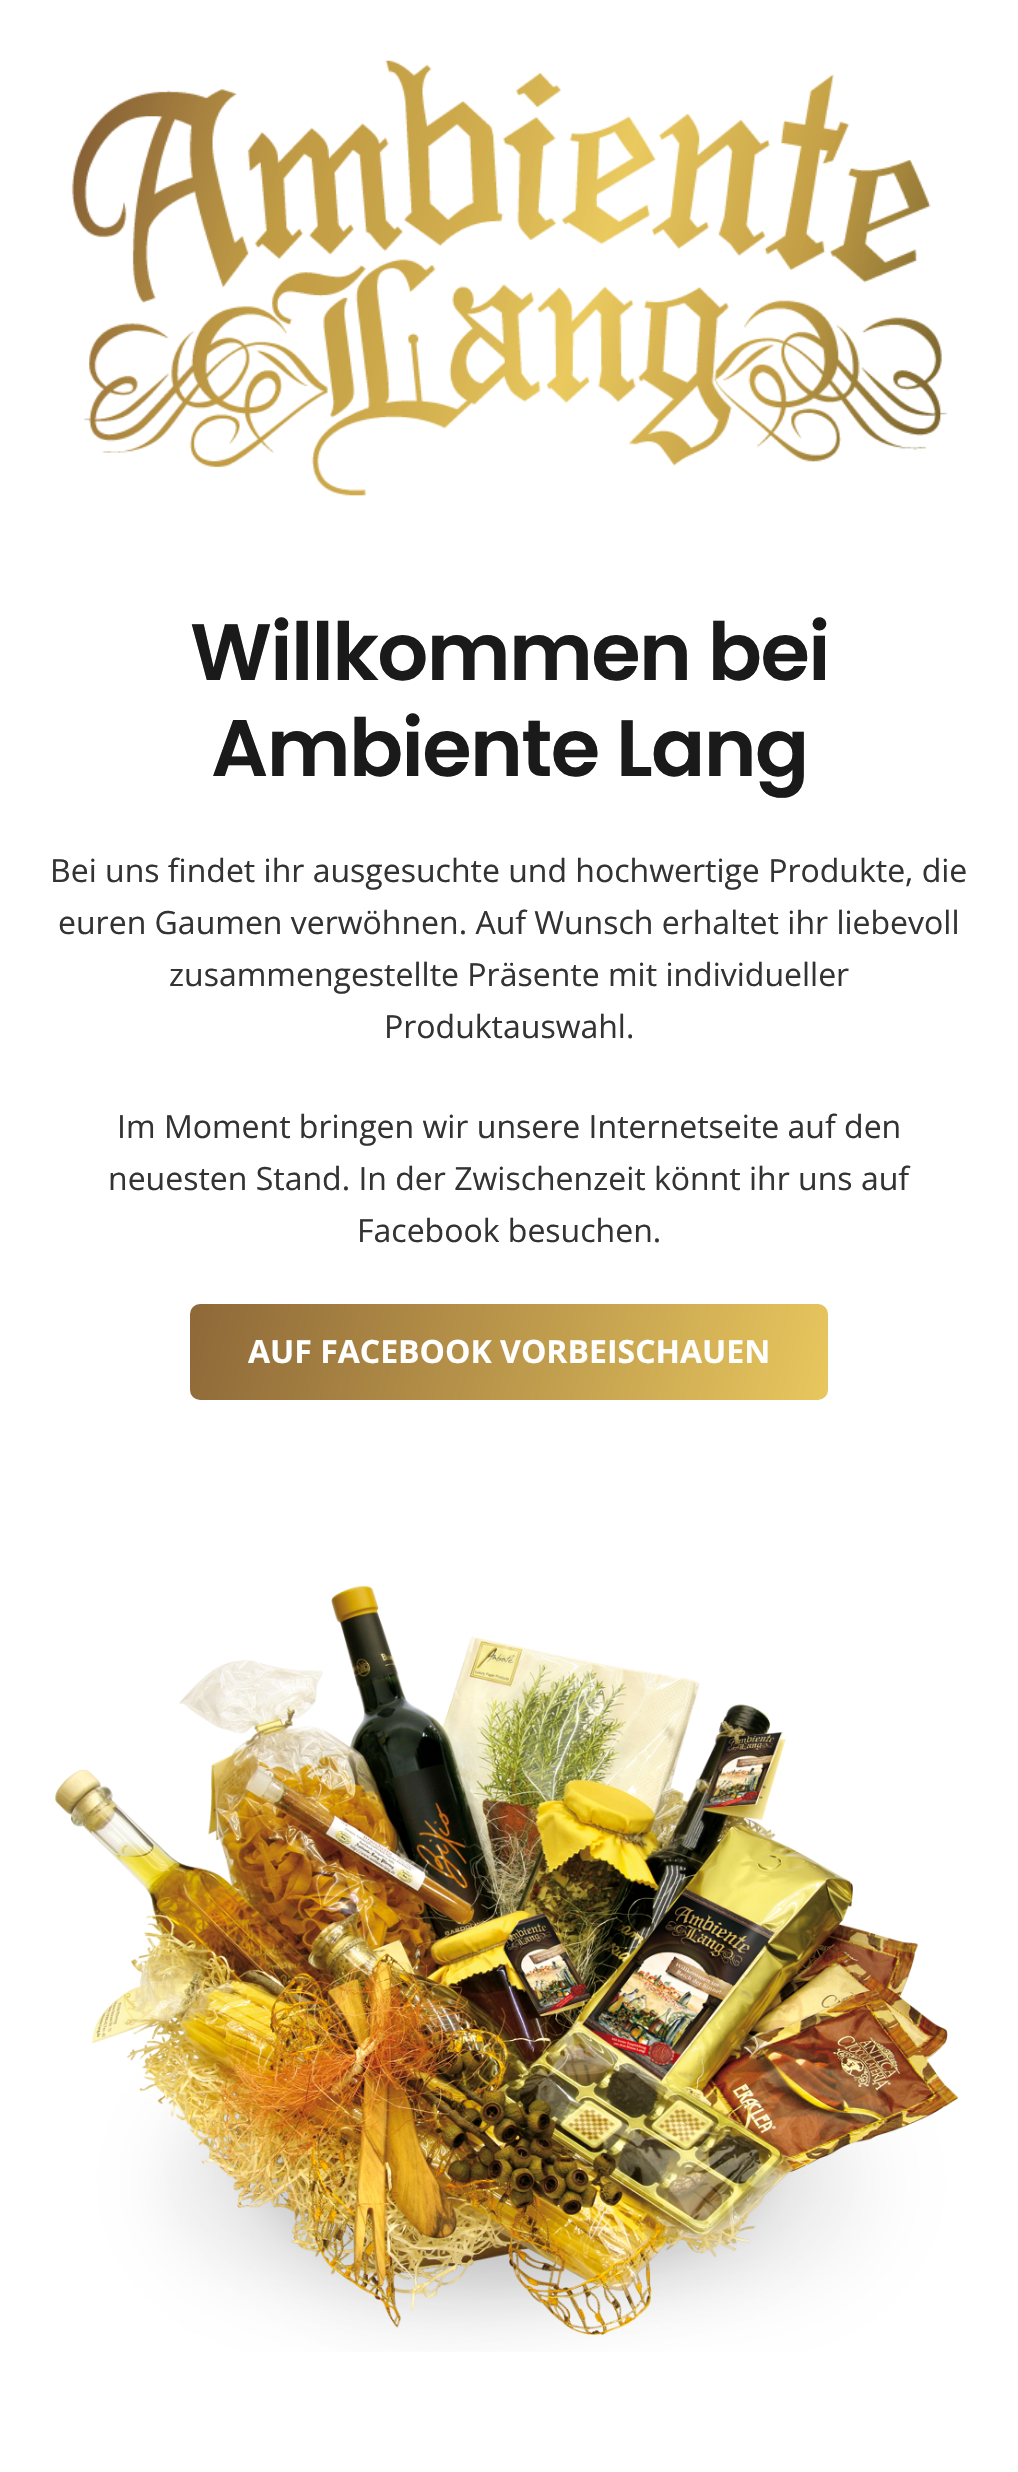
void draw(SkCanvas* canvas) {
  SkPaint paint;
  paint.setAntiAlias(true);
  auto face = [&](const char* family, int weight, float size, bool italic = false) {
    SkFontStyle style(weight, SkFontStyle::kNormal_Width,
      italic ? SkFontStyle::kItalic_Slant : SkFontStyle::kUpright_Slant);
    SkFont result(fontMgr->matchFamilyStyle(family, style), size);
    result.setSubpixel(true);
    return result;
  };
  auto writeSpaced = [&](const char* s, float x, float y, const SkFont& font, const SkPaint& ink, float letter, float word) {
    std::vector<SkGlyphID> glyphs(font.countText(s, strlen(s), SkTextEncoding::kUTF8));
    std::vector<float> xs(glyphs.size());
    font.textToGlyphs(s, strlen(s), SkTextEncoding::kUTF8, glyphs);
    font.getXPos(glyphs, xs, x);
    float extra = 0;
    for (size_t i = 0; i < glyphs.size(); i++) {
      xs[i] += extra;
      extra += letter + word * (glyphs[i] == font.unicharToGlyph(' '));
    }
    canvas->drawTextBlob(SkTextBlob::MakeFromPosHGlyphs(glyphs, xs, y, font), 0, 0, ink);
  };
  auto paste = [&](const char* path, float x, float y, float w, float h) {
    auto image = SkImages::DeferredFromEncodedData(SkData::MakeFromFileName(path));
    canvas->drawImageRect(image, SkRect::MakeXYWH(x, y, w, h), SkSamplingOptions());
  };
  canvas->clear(0xffffffff);
  paste("img/1.png", 71, 60, 877, 436);
  {
    const SkColor colors[] = {0xff8e6838, 0xffe8c75e};
    const float stops[] = {0, 1};
    const SkPoint ends[] = {{199, 1269}, {819, 1435}};
    paint.setShader(SkGradientShader::MakeLinear(ends, colors, stops, 2, SkTileMode::kClamp));
    paint.setAlpha(255);
  }
  canvas->drawRoundRect(SkRect::MakeXYWH(190, 1304, 638, 96), 10, 10, paint);
  paste("img/2.png", 55, 1585, 903, 767);
  auto f0 = face("Poppins", 600, 80);
  paint.setShader(nullptr);
  paint.setColor(0xff1a1a1a);
  writeSpaced("Willkommen bei", 190, 680, f0, paint, -1.6f, 0);
  writeSpaced("Ambiente Lang", 211, 776, f0, paint, -1.6f, 0);
  auto f1 = face("Open Sans", 400, 32);
  paint.setColor(0xff333333);
  {
    const struct { const char* s; float x, y; } items[] = {
      {"Bei uns findet ihr ausgesuchte und hochwertige Produkte, die", 50, 882},
      {"euren Gaumen verwöhnen. Auf Wunsch erhaltet ihr liebevoll", 58, 934},
      {"zusammengestellte Präsente mit individueller", 169, 986},
      {"Produktauswahl.", 384, 1038},
      {"Im Moment bringen wir unsere Internetseite auf den", 117, 1138},
      {"neuesten Stand. In der Zwischenzeit könnt ihr uns auf", 108, 1190},
      {"Facebook besuchen.", 357, 1242},
    };
    for (auto [s, x, y] : items) {
      canvas->drawString(s, x, y, f1, paint);
    }
  }
  auto f2 = face("Open Sans", 700, 32);
  paint.setColor(0xffffffff);
  canvas->drawString("AUF FACEBOOK VORBEISCHAUEN", 248, 1363, f2, paint);
}
